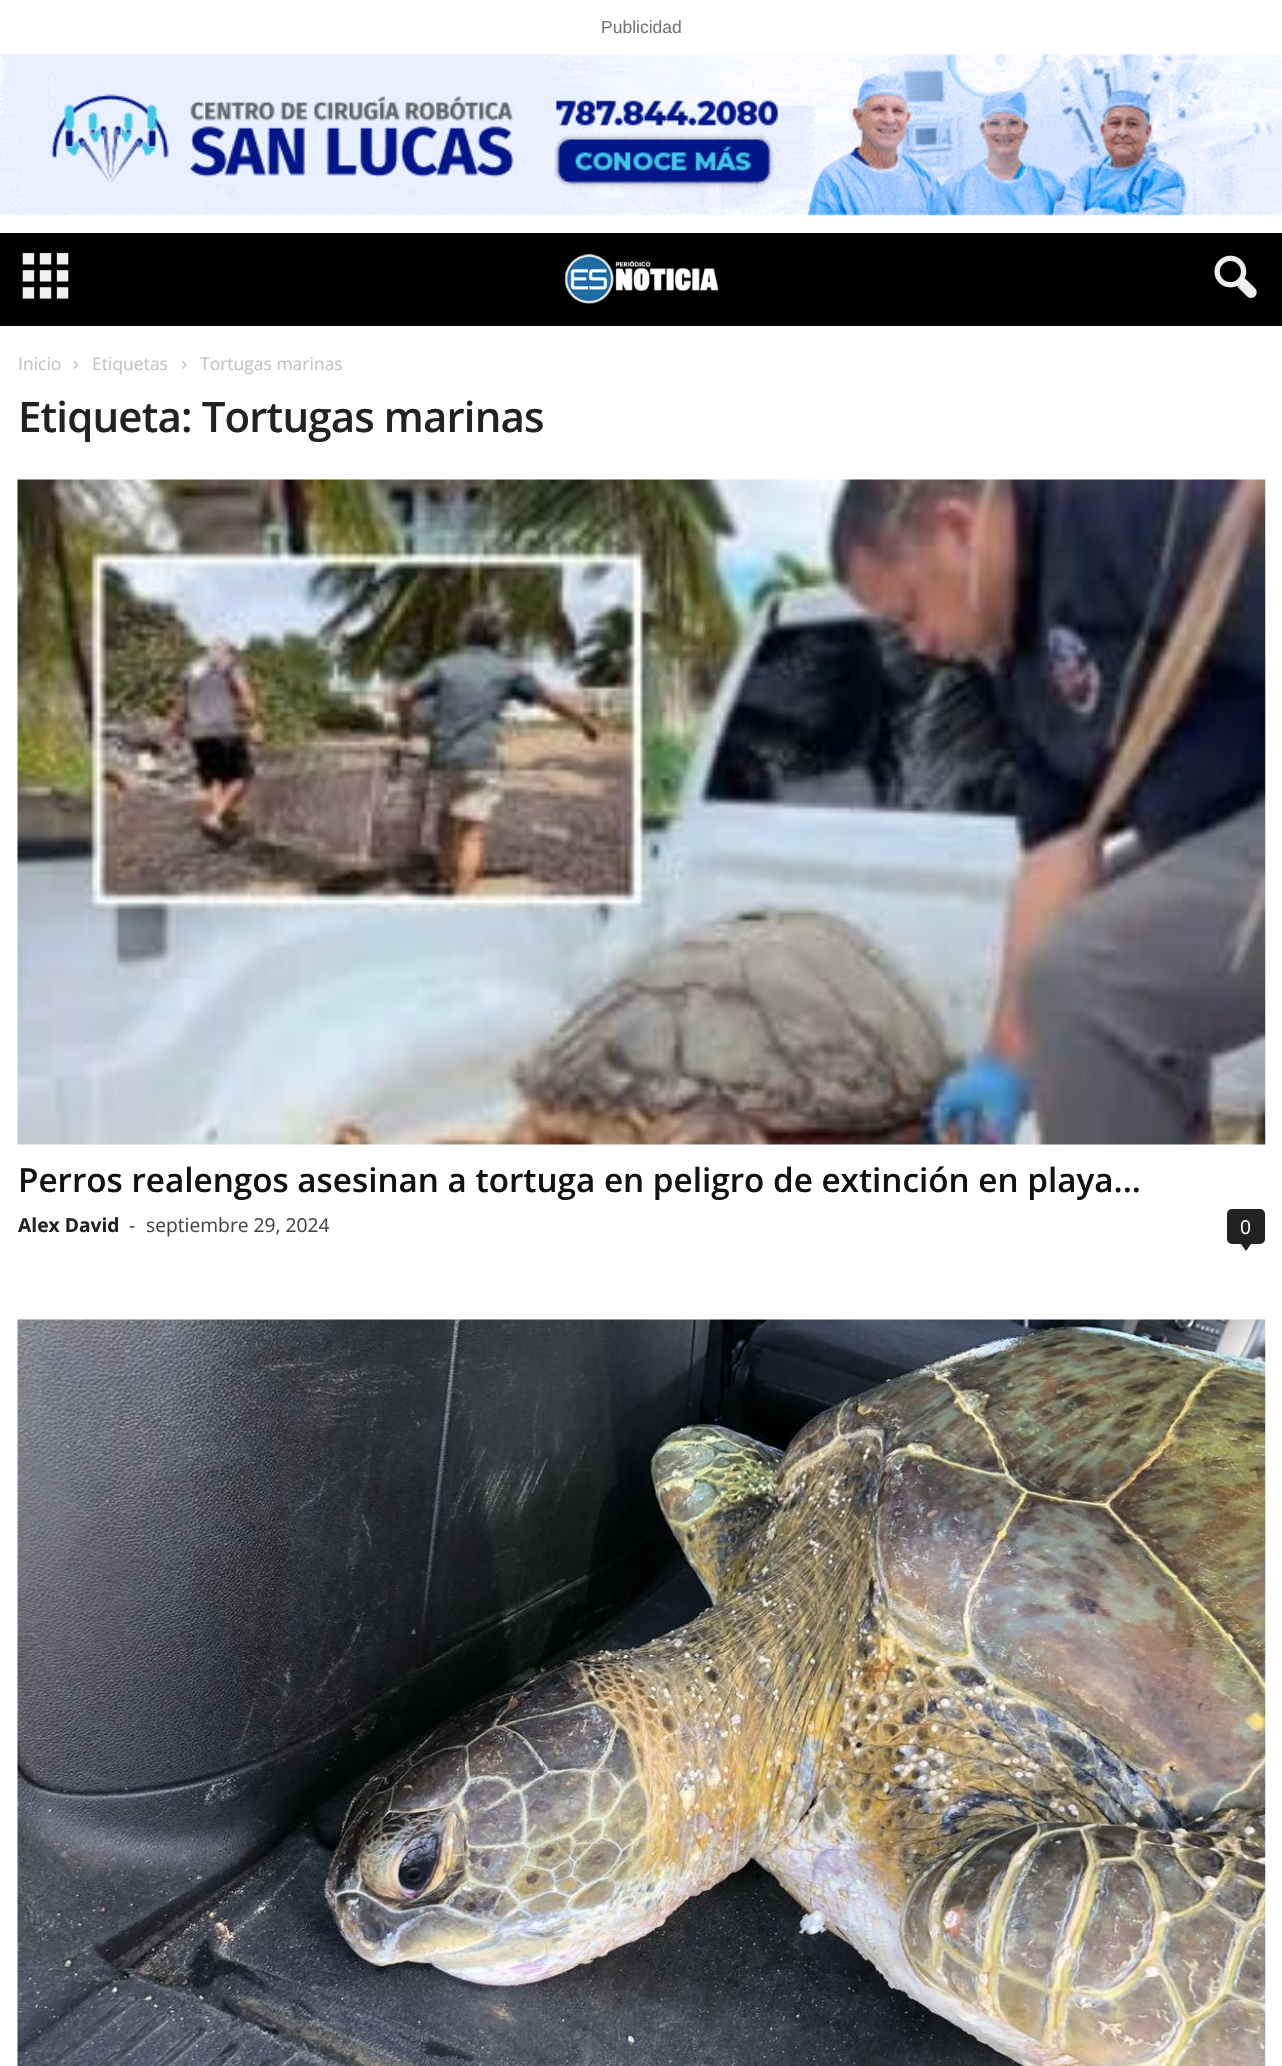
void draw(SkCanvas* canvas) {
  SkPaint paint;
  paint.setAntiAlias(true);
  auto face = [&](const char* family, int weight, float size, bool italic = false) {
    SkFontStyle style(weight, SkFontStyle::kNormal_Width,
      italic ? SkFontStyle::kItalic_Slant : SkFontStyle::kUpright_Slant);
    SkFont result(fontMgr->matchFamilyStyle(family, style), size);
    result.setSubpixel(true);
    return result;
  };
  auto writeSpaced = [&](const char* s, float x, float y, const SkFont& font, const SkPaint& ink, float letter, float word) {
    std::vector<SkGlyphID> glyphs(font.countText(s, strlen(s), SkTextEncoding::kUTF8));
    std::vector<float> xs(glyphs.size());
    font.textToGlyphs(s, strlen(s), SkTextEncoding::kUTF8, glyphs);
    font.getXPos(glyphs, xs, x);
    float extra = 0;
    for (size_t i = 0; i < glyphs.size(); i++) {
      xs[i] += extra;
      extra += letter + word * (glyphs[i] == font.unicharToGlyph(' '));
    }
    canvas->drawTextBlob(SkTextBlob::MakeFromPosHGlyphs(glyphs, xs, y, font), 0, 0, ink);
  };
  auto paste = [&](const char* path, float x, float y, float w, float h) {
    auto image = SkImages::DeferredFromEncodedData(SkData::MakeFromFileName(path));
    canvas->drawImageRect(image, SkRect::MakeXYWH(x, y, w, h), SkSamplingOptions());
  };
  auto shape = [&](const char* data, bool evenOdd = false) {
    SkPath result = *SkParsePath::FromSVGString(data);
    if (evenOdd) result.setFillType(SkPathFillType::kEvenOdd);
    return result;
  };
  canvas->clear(0xffffffff);
  paste("img/1.png", 0, 54, 1282, 162);
  paint.setColor(0xff000000);
  canvas->drawRect(SkRect::MakeXYWH(0, 233, 1282, 93), paint);
  paste("img/2.png", 22, 253, 47, 46);
  paste("img/3.png", 565, 254, 154, 50);
  paste("img/4.png", 1214, 255, 43, 43);
  paste("img/5.png", 73, 360, 6, 9);
  paste("img/6.png", 182, 360, 5, 9);
  paste("img/7.png", 17, 479, 1249, 666);
  paint.setColor(0xff222222);
  canvas->drawRoundRect(SkRect::MakeXYWH(1227, 1209, 38, 35), 5, 5, paint);
  canvas->drawPath(shape("M1241 1244H1251L1246 1251Z"), paint);
  paste("img/8.png", 17, 1319, 1249, 747);
  auto f0 = face("Liberation Sans", 400, 17.5f);
  paint.setColor(0xff767676);
  canvas->drawString("Publicidad", 601, 33, f0, paint);
  auto f1 = face("Open Sans", 400, 17.5f);
  paint.setColor(0xffc3c3c3);
  {
    const struct { const char* s; float x, y; } items[] = {
      {"Inicio", 18, 370},
      {"Etiquetas", 92, 370},
      {"Tortugas marinas", 200, 370},
    };
    for (auto [s, x, y] : items) {
      canvas->drawString(s, x, y, f1, paint);
    }
  }
  auto f2 = face("Open Sans", 600, 42);
  paint.setColor(0xff222222);
  writeSpaced("Etiqueta: Tortugas marinas", 18, 432, f2, paint, -0.85f, 0);
  auto f3 = face("Open Sans", 600, 33.25f);
  paint.setColor(0xff111111);
  canvas->drawString("Perros realengos asesinan a tortuga en peligro de extinción en playa...", 18, 1192, f3, paint);
  auto f4 = face("Open Sans", 700, 19.25f);
  paint.setColor(0xff222222);
  canvas->drawString("Alex David", 18, 1232, f4, paint);
  auto f5 = face("Open Sans", 400, 19.25f);
  paint.setColor(0xff444444);
  canvas->drawString("-", 129, 1232, f5, paint);
  canvas->drawString("septiembre 29, 2024", 146, 1232, f5, paint);
  paint.setColor(0xffffffff);
  canvas->drawString("0", 1240, 1234, f5, paint);
}
